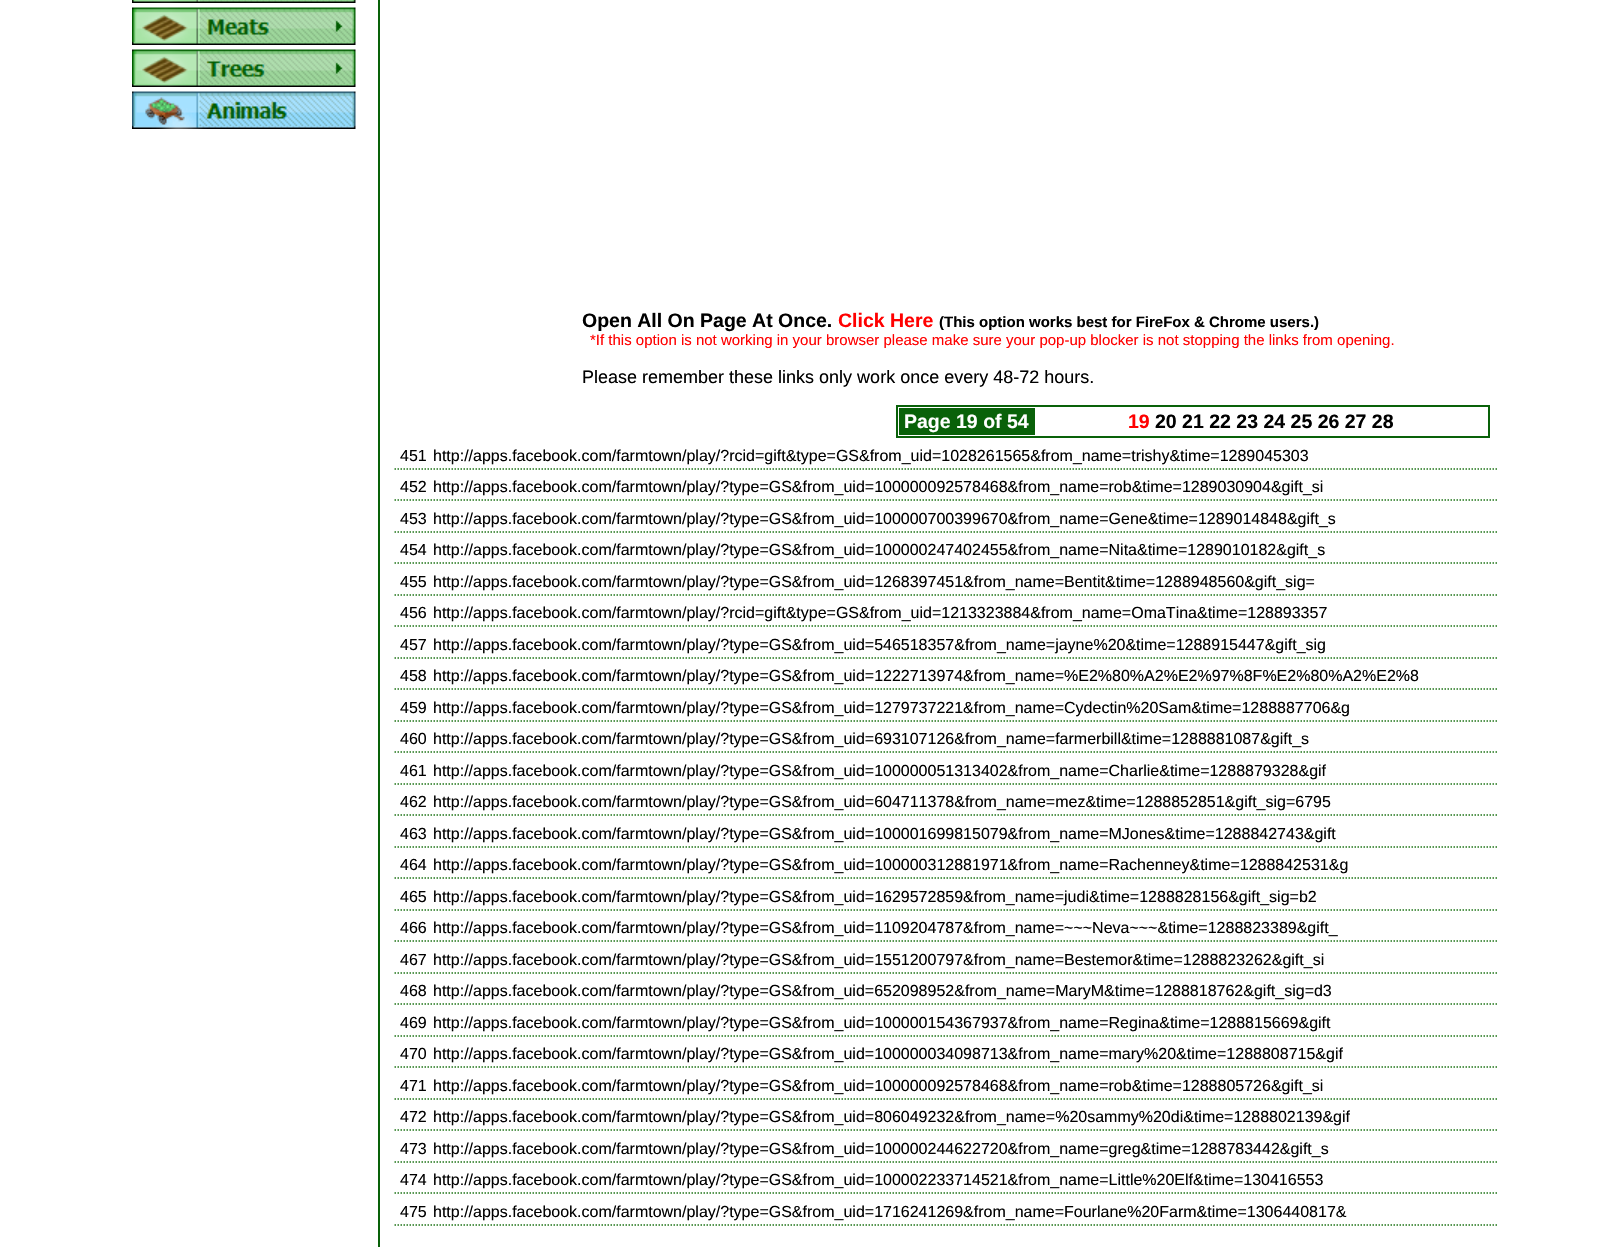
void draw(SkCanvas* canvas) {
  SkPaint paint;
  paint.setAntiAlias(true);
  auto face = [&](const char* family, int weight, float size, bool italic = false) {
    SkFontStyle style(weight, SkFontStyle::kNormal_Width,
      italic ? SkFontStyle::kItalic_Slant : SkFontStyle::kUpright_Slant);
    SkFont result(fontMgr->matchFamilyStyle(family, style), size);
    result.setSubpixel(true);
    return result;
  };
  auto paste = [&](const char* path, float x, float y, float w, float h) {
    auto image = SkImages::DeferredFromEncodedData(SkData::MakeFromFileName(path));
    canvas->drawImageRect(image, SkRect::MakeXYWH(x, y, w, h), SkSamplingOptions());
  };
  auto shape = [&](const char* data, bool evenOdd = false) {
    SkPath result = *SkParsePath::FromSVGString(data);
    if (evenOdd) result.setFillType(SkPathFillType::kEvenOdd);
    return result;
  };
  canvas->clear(0xffffffff);
  paint.setColor(0xff096109);
  canvas->drawRect(SkRect::MakeXYWH(378, 0, 2, 1247), paint);
  paste("img/1.png", 132, 0, 224, 3);
  paste("img/2.png", 132, 7, 224, 38);
  paste("img/3.png", 132, 49, 224, 38);
  paste("img/4.png", 132, 91, 224, 38);
  paint.setStroke(true);
  paint.setStrokeWidth(2);
  canvas->drawRect(SkRect::MakeXYWH(897, 406, 592, 31), paint);
  paint.setStroke(false);
  canvas->drawRect(SkRect::MakeXYWH(899, 408, 136, 27), paint);
  paint.setStroke(true);
  paint.setStrokeWidth(1.5f);
  paint.setColor(0xff1f7519);
  paint.setPathEffect(SkDashPathEffect::Make({{1.5f, 1.5f}}, 0));
  canvas->drawPath(shape("M394.5 469H427.5"), paint);
  paint.setPathEffect(nullptr);
  paint.setPathEffect(SkDashPathEffect::Make({{1.5f, 1.5f}}, 0));
  canvas->drawPath(shape("M427.5 469H1497"), paint);
  paint.setPathEffect(nullptr);
  paint.setPathEffect(SkDashPathEffect::Make({{1.5f, 1.5f}}, 0));
  canvas->drawPath(shape("M394.5 500H427.5"), paint);
  paint.setPathEffect(nullptr);
  paint.setPathEffect(SkDashPathEffect::Make({{1.5f, 1.5f}}, 0));
  canvas->drawPath(shape("M427.5 500H1497"), paint);
  paint.setPathEffect(nullptr);
  paint.setPathEffect(SkDashPathEffect::Make({{1.5f, 1.5f}}, 0));
  canvas->drawPath(shape("M394.5 532H427.5"), paint);
  paint.setPathEffect(nullptr);
  paint.setPathEffect(SkDashPathEffect::Make({{1.5f, 1.5f}}, 0));
  canvas->drawPath(shape("M427.5 532H1497"), paint);
  paint.setPathEffect(nullptr);
  paint.setPathEffect(SkDashPathEffect::Make({{1.5f, 1.5f}}, 0));
  canvas->drawPath(shape("M394.5 563H427.5"), paint);
  paint.setPathEffect(nullptr);
  paint.setPathEffect(SkDashPathEffect::Make({{1.5f, 1.5f}}, 0));
  canvas->drawPath(shape("M427.5 563H1497"), paint);
  paint.setPathEffect(nullptr);
  paint.setPathEffect(SkDashPathEffect::Make({{1.5f, 1.5f}}, 0));
  canvas->drawPath(shape("M394.5 595H427.5"), paint);
  paint.setPathEffect(nullptr);
  paint.setPathEffect(SkDashPathEffect::Make({{1.5f, 1.5f}}, 0));
  canvas->drawPath(shape("M427.5 595H1497"), paint);
  paint.setPathEffect(nullptr);
  paint.setPathEffect(SkDashPathEffect::Make({{1.5f, 1.5f}}, 0));
  canvas->drawPath(shape("M394.5 626H427.5"), paint);
  paint.setPathEffect(nullptr);
  paint.setPathEffect(SkDashPathEffect::Make({{1.5f, 1.5f}}, 0));
  canvas->drawPath(shape("M427.5 626H1497"), paint);
  paint.setPathEffect(nullptr);
  paint.setPathEffect(SkDashPathEffect::Make({{1.5f, 1.5f}}, 0));
  canvas->drawPath(shape("M394.5 658H427.5"), paint);
  paint.setPathEffect(nullptr);
  paint.setPathEffect(SkDashPathEffect::Make({{1.5f, 1.5f}}, 0));
  canvas->drawPath(shape("M427.5 658H1497"), paint);
  paint.setPathEffect(nullptr);
  paint.setPathEffect(SkDashPathEffect::Make({{1.5f, 1.5f}}, 0));
  canvas->drawPath(shape("M394.5 689H427.5"), paint);
  paint.setPathEffect(nullptr);
  paint.setPathEffect(SkDashPathEffect::Make({{1.5f, 1.5f}}, 0));
  canvas->drawPath(shape("M427.5 689H1497"), paint);
  paint.setPathEffect(nullptr);
  paint.setPathEffect(SkDashPathEffect::Make({{1.5f, 1.5f}}, 0));
  canvas->drawPath(shape("M394.5 721H427.5"), paint);
  paint.setPathEffect(nullptr);
  paint.setPathEffect(SkDashPathEffect::Make({{1.5f, 1.5f}}, 0));
  canvas->drawPath(shape("M427.5 721H1497"), paint);
  paint.setPathEffect(nullptr);
  paint.setPathEffect(SkDashPathEffect::Make({{1.5f, 1.5f}}, 0));
  canvas->drawPath(shape("M394.5 752H427.5"), paint);
  paint.setPathEffect(nullptr);
  paint.setPathEffect(SkDashPathEffect::Make({{1.5f, 1.5f}}, 0));
  canvas->drawPath(shape("M427.5 752H1497"), paint);
  paint.setPathEffect(nullptr);
  paint.setPathEffect(SkDashPathEffect::Make({{1.5f, 1.5f}}, 0));
  canvas->drawPath(shape("M394.5 784H427.5"), paint);
  paint.setPathEffect(nullptr);
  paint.setPathEffect(SkDashPathEffect::Make({{1.5f, 1.5f}}, 0));
  canvas->drawPath(shape("M427.5 784H1497"), paint);
  paint.setPathEffect(nullptr);
  paint.setPathEffect(SkDashPathEffect::Make({{1.5f, 1.5f}}, 0));
  canvas->drawPath(shape("M394.5 815H427.5"), paint);
  paint.setPathEffect(nullptr);
  paint.setPathEffect(SkDashPathEffect::Make({{1.5f, 1.5f}}, 0));
  canvas->drawPath(shape("M427.5 815H1497"), paint);
  paint.setPathEffect(nullptr);
  paint.setPathEffect(SkDashPathEffect::Make({{1.5f, 1.5f}}, 0));
  canvas->drawPath(shape("M394.5 847H427.5"), paint);
  paint.setPathEffect(nullptr);
  paint.setPathEffect(SkDashPathEffect::Make({{1.5f, 1.5f}}, 0));
  canvas->drawPath(shape("M427.5 847H1497"), paint);
  paint.setPathEffect(nullptr);
  paint.setPathEffect(SkDashPathEffect::Make({{1.5f, 1.5f}}, 0));
  canvas->drawPath(shape("M394.5 878H427.5"), paint);
  paint.setPathEffect(nullptr);
  paint.setPathEffect(SkDashPathEffect::Make({{1.5f, 1.5f}}, 0));
  canvas->drawPath(shape("M427.5 878H1497"), paint);
  paint.setPathEffect(nullptr);
  paint.setPathEffect(SkDashPathEffect::Make({{1.5f, 1.5f}}, 0));
  canvas->drawPath(shape("M394.5 910H427.5"), paint);
  paint.setPathEffect(nullptr);
  paint.setPathEffect(SkDashPathEffect::Make({{1.5f, 1.5f}}, 0));
  canvas->drawPath(shape("M427.5 910H1497"), paint);
  paint.setPathEffect(nullptr);
  paint.setPathEffect(SkDashPathEffect::Make({{1.5f, 1.5f}}, 0));
  canvas->drawPath(shape("M394.5 941H427.5"), paint);
  paint.setPathEffect(nullptr);
  paint.setPathEffect(SkDashPathEffect::Make({{1.5f, 1.5f}}, 0));
  canvas->drawPath(shape("M427.5 941H1497"), paint);
  paint.setPathEffect(nullptr);
  paint.setPathEffect(SkDashPathEffect::Make({{1.5f, 1.5f}}, 0));
  canvas->drawPath(shape("M394.5 973H427.5"), paint);
  paint.setPathEffect(nullptr);
  paint.setPathEffect(SkDashPathEffect::Make({{1.5f, 1.5f}}, 0));
  canvas->drawPath(shape("M427.5 973H1497"), paint);
  paint.setPathEffect(nullptr);
  paint.setPathEffect(SkDashPathEffect::Make({{1.5f, 1.5f}}, 0));
  canvas->drawPath(shape("M394.5 1004H427.5"), paint);
  paint.setPathEffect(nullptr);
  paint.setPathEffect(SkDashPathEffect::Make({{1.5f, 1.5f}}, 0));
  canvas->drawPath(shape("M427.5 1004H1497"), paint);
  paint.setPathEffect(nullptr);
  paint.setPathEffect(SkDashPathEffect::Make({{1.5f, 1.5f}}, 0));
  canvas->drawPath(shape("M394.5 1036H427.5"), paint);
  paint.setPathEffect(nullptr);
  paint.setPathEffect(SkDashPathEffect::Make({{1.5f, 1.5f}}, 0));
  canvas->drawPath(shape("M427.5 1036H1497"), paint);
  paint.setPathEffect(nullptr);
  paint.setPathEffect(SkDashPathEffect::Make({{1.5f, 1.5f}}, 0));
  canvas->drawPath(shape("M394.5 1067H427.5"), paint);
  paint.setPathEffect(nullptr);
  paint.setPathEffect(SkDashPathEffect::Make({{1.5f, 1.5f}}, 0));
  canvas->drawPath(shape("M427.5 1067H1497"), paint);
  paint.setPathEffect(nullptr);
  paint.setPathEffect(SkDashPathEffect::Make({{1.5f, 1.5f}}, 0));
  canvas->drawPath(shape("M394.5 1099H427.5"), paint);
  paint.setPathEffect(nullptr);
  paint.setPathEffect(SkDashPathEffect::Make({{1.5f, 1.5f}}, 0));
  canvas->drawPath(shape("M427.5 1099H1497"), paint);
  paint.setPathEffect(nullptr);
  paint.setPathEffect(SkDashPathEffect::Make({{1.5f, 1.5f}}, 0));
  canvas->drawPath(shape("M394.5 1130H427.5"), paint);
  paint.setPathEffect(nullptr);
  paint.setPathEffect(SkDashPathEffect::Make({{1.5f, 1.5f}}, 0));
  canvas->drawPath(shape("M427.5 1130H1497"), paint);
  paint.setPathEffect(nullptr);
  paint.setPathEffect(SkDashPathEffect::Make({{1.5f, 1.5f}}, 0));
  canvas->drawPath(shape("M394.5 1162H427.5"), paint);
  paint.setPathEffect(nullptr);
  paint.setPathEffect(SkDashPathEffect::Make({{1.5f, 1.5f}}, 0));
  canvas->drawPath(shape("M427.5 1162H1497"), paint);
  paint.setPathEffect(nullptr);
  paint.setPathEffect(SkDashPathEffect::Make({{1.5f, 1.5f}}, 0));
  canvas->drawPath(shape("M394.5 1193H427.5"), paint);
  paint.setPathEffect(nullptr);
  paint.setPathEffect(SkDashPathEffect::Make({{1.5f, 1.5f}}, 0));
  canvas->drawPath(shape("M427.5 1193H1497"), paint);
  paint.setPathEffect(nullptr);
  paint.setPathEffect(SkDashPathEffect::Make({{1.5f, 1.5f}}, 0));
  canvas->drawPath(shape("M394.5 1225H427.5"), paint);
  paint.setPathEffect(nullptr);
  paint.setPathEffect(SkDashPathEffect::Make({{1.5f, 1.5f}}, 0));
  canvas->drawPath(shape("M427.5 1225H1497"), paint);
  paint.setPathEffect(nullptr);
  auto f0 = face("Liberation Sans", 700, 19.5f);
  paint.setStroke(false);
  paint.setColor(0xff000000);
  canvas->drawString("Open All On Page At Once.", 582, 327, f0, paint);
  paint.setColor(0xffff0000);
  canvas->drawString("Click Here", 838, 327, f0, paint);
  auto f1 = face("Liberation Sans", 700, 15);
  paint.setColor(0xff000000);
  canvas->drawString("(This option works best for FireFox & Chrome users.)", 939, 327, f1, paint);
  auto f2 = face("Liberation Sans", 400, 15);
  paint.setColor(0xffff0000);
  canvas->drawString("*If this option is not working in your browser please make sure your pop-up blocker is not stopping the links from opening.", 590, 345, f2, paint);
  auto f3 = face("Liberation Sans", 400, 18);
  paint.setColor(0xff000000);
  canvas->drawString("Please remember these links only work once every 48-72 hours.", 582, 383, f3, paint);
  paint.setColor(0xffffffff);
  canvas->drawString("Page 19 of 54", 904, 428, f0, paint);
  paint.setColor(0xffff0000);
  canvas->drawString("19", 1128, 428, f0, paint);
  paint.setColor(0xff000000);
  canvas->drawString("20 21 22 23 24 25 26 27 28", 1155, 428, f0, paint);
  auto f4 = face("Liberation Sans", 400, 16);
  {
    const struct { const char* s; float x, y; } items[] = {
      {"451", 400, 461},
      {"http://apps.facebook.com/farmtown/play/?rcid=gift&type=GS&from_uid=1028261565&from_name=trishy&time=1289045303", 433, 461},
      {"452", 400, 492},
      {"http://apps.facebook.com/farmtown/play/?type=GS&from_uid=100000092578468&from_name=rob&time=1289030904&gift_si", 433, 492},
      {"453", 400, 524},
      {"http://apps.facebook.com/farmtown/play/?type=GS&from_uid=100000700399670&from_name=Gene&time=1289014848&gift_s", 433, 524},
      {"454", 400, 555},
      {"http://apps.facebook.com/farmtown/play/?type=GS&from_uid=100000247402455&from_name=Nita&time=1289010182&gift_s", 433, 555},
      {"455", 400, 587},
      {"http://apps.facebook.com/farmtown/play/?type=GS&from_uid=1268397451&from_name=Bentit&time=1288948560&gift_sig=", 433, 587},
      {"456", 400, 618},
      {"http://apps.facebook.com/farmtown/play/?rcid=gift&type=GS&from_uid=1213323884&from_name=OmaTina&time=128893357", 433, 618},
      {"457", 400, 650},
      {"http://apps.facebook.com/farmtown/play/?type=GS&from_uid=546518357&from_name=jayne%20&time=1288915447&gift_sig", 433, 650},
      {"458", 400, 681},
      {"http://apps.facebook.com/farmtown/play/?type=GS&from_uid=1222713974&from_name=%E2%80%A2%E2%97%8F%E2%80%A2%E2%8", 433, 681},
      {"459", 400, 713},
      {"http://apps.facebook.com/farmtown/play/?type=GS&from_uid=1279737221&from_name=Cydectin%20Sam&time=1288887706&g", 433, 713},
      {"460", 400, 744},
      {"http://apps.facebook.com/farmtown/play/?type=GS&from_uid=693107126&from_name=farmerbill&time=1288881087&gift_s", 433, 744},
      {"461", 400, 776},
      {"http://apps.facebook.com/farmtown/play/?type=GS&from_uid=100000051313402&from_name=Charlie&time=1288879328&gif", 433, 776},
      {"462", 400, 807},
      {"http://apps.facebook.com/farmtown/play/?type=GS&from_uid=604711378&from_name=mez&time=1288852851&gift_sig=6795", 433, 807},
      {"463", 400, 839},
      {"http://apps.facebook.com/farmtown/play/?type=GS&from_uid=100001699815079&from_name=MJones&time=1288842743&gift", 433, 839},
      {"464", 400, 870},
      {"http://apps.facebook.com/farmtown/play/?type=GS&from_uid=100000312881971&from_name=Rachenney&time=1288842531&g", 433, 870},
      {"465", 400, 902},
      {"http://apps.facebook.com/farmtown/play/?type=GS&from_uid=1629572859&from_name=judi&time=1288828156&gift_sig=b2", 433, 902},
      {"466", 400, 933},
      {"http://apps.facebook.com/farmtown/play/?type=GS&from_uid=1109204787&from_name=~~~Neva~~~&time=1288823389&gift_", 433, 933},
      {"467", 400, 965},
      {"http://apps.facebook.com/farmtown/play/?type=GS&from_uid=1551200797&from_name=Bestemor&time=1288823262&gift_si", 433, 965},
      {"468", 400, 996},
      {"http://apps.facebook.com/farmtown/play/?type=GS&from_uid=652098952&from_name=MaryM&time=1288818762&gift_sig=d3", 433, 996},
      {"469", 400, 1028},
      {"http://apps.facebook.com/farmtown/play/?type=GS&from_uid=100000154367937&from_name=Regina&time=1288815669&gift", 433, 1028},
      {"470", 400, 1059},
      {"http://apps.facebook.com/farmtown/play/?type=GS&from_uid=100000034098713&from_name=mary%20&time=1288808715&gif", 433, 1059},
      {"471", 400, 1091},
      {"http://apps.facebook.com/farmtown/play/?type=GS&from_uid=100000092578468&from_name=rob&time=1288805726&gift_si", 433, 1091},
      {"472", 400, 1122},
      {"http://apps.facebook.com/farmtown/play/?type=GS&from_uid=806049232&from_name=%20sammy%20di&time=1288802139&gif", 433, 1122},
      {"473", 400, 1154},
      {"http://apps.facebook.com/farmtown/play/?type=GS&from_uid=100000244622720&from_name=greg&time=1288783442&gift_s", 433, 1154},
      {"474", 400, 1185},
      {"http://apps.facebook.com/farmtown/play/?type=GS&from_uid=100002233714521&from_name=Little%20Elf&time=130416553", 433, 1185},
      {"475", 400, 1217},
      {"http://apps.facebook.com/farmtown/play/?type=GS&from_uid=1716241269&from_name=Fourlane%20Farm&time=1306440817&", 433, 1217},
    };
    for (auto [s, x, y] : items) {
      canvas->drawString(s, x, y, f4, paint);
    }
  }
}
